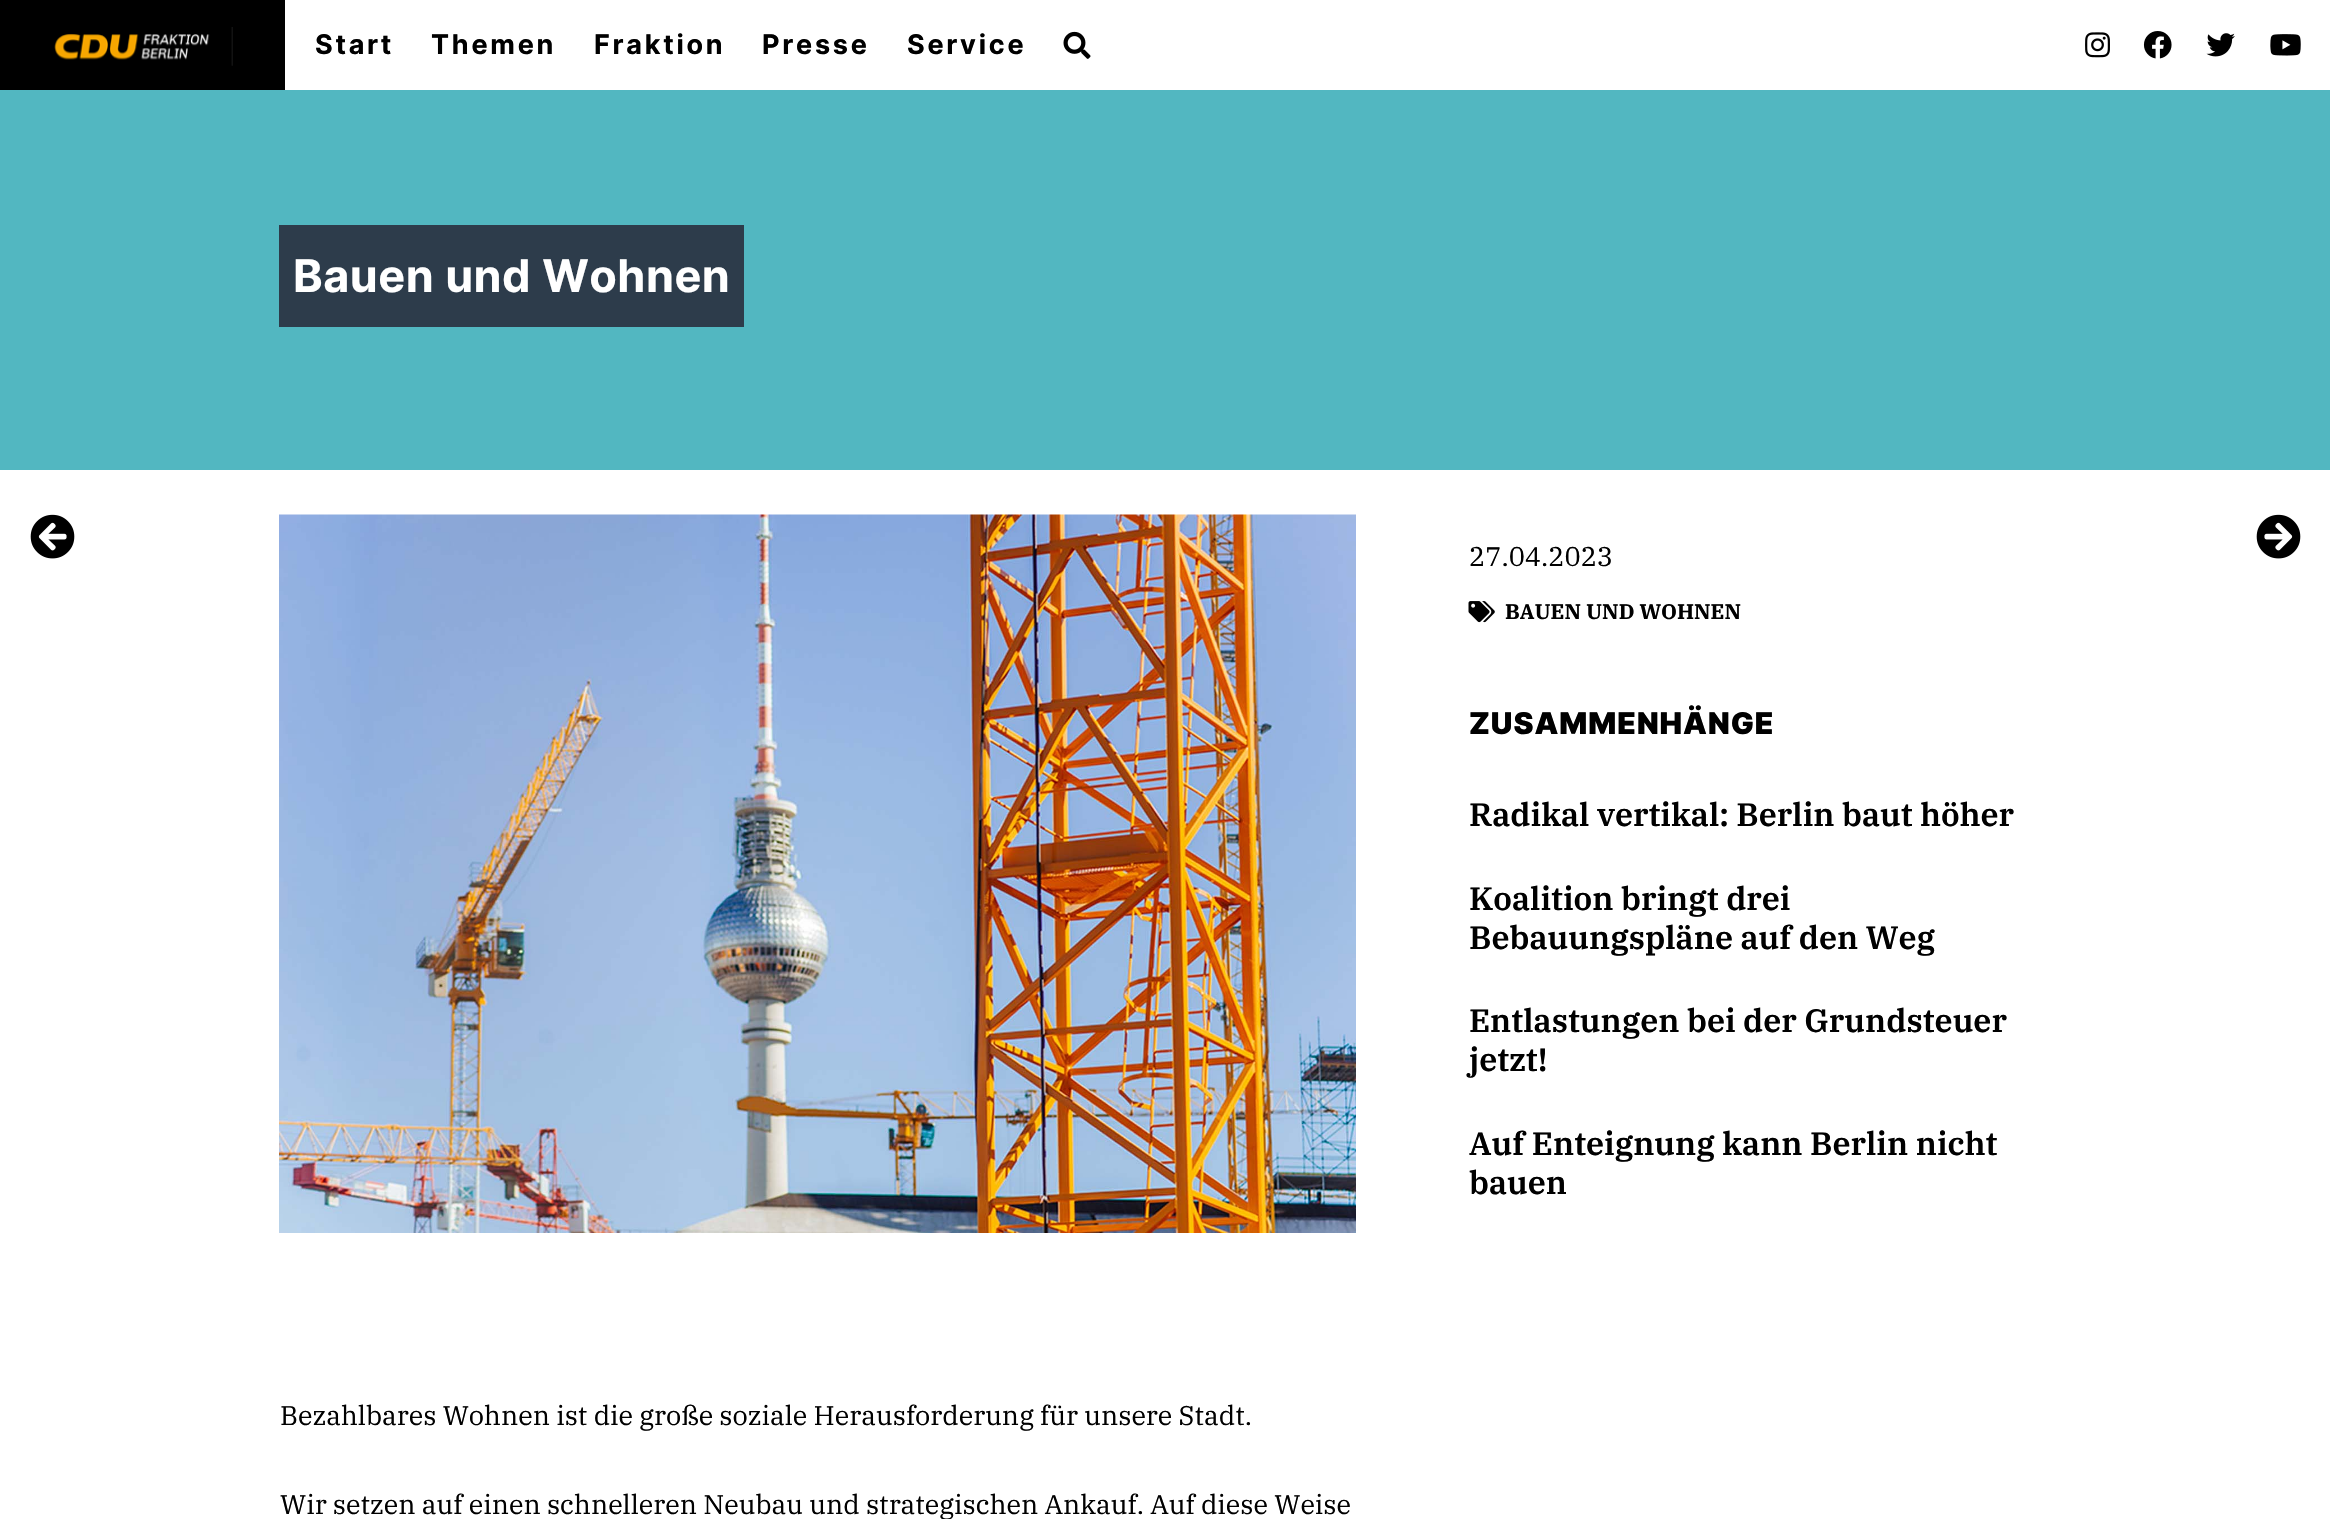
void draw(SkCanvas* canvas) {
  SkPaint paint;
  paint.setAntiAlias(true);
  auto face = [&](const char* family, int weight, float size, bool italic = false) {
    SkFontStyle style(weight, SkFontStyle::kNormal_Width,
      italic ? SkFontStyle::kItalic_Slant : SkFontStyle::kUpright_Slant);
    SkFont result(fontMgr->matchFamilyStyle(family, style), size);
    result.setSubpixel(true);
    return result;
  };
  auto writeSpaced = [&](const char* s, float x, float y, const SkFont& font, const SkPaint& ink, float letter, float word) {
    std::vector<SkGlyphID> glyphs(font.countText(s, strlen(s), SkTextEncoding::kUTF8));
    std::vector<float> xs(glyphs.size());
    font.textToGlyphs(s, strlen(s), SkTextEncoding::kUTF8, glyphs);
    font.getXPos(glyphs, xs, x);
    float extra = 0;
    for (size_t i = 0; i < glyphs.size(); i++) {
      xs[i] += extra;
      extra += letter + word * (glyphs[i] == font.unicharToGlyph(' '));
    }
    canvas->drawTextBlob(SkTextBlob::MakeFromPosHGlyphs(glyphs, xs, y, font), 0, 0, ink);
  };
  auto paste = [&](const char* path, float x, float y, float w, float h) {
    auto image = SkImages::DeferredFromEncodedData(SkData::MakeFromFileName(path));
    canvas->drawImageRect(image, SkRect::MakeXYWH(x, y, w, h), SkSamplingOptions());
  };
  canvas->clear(0xffffffff);
  paint.setColor(0xff000000);
  canvas->drawRect(SkRect::MakeXYWH(0, 0, 285, 90), paint);
  paste("img/1.png", 54, 27, 179, 39);
  paste("img/2.png", 1063, 31, 28, 28);
  paste("img/3.png", 2085, 32, 25, 26);
  paste("img/4.png", 2143, 31, 29, 28);
  paste("img/5.png", 2206, 33, 29, 24);
  paste("img/6.png", 2270, 34, 31, 22);
  paint.setColor(0xff52b7c1);
  canvas->drawRect(SkRect::MakeXYWH(0, 90, 2330, 380), paint);
  paint.setColor(0xff2d3c4b);
  canvas->drawRect(SkRect::MakeXYWH(279, 225, 465, 102), paint);
  paste("img/7.png", 30, 514, 45, 45);
  paste("img/8.png", 2256, 514, 45, 45);
  paste("img/9.png", 1468, 601, 27, 22);
  paste("img/10.png", 279, 514, 1077, 719);
  auto f0 = face("Inter", 700, 27);
  paint.setColor(0xff000000);
  {
    const struct { const char* s; float x, y; } items[] = {
      {"Start", 315, 54},
      {"Themen", 431, 54},
      {"Fraktion", 594, 54},
      {"Presse", 762, 54},
      {"Service", 907, 54},
    };
    for (auto [s, x, y] : items) {
      writeSpaced(s, x, y, f0, paint, 2.75f, 0);
    }
  }
  auto f1 = face("Inter", 700, 45);
  paint.setColor(0xffffffff);
  writeSpaced("Bauen und Wohnen", 293, 292, f1, paint, 0.5f, 0);
  auto f2 = face("IBM Plex Serif", 400, 27);
  paint.setColor(0xff000000);
  canvas->drawString("27.04.2023", 1469, 566, f2, paint);
  auto f3 = face("IBM Plex Serif", 700, 21);
  canvas->drawString("BAUEN UND WOHNEN", 1505, 619, f3, paint);
  auto f4 = face("Inter", 900, 30);
  writeSpaced("ZUSAMMENHÄNGE", 1469, 734, f4, paint, 1, 0);
  auto f5 = face("IBM Plex Serif", 600, 32.4f);
  {
    const struct { const char* s; float x, y; } items[] = {
      {"Radikal vertikal: Berlin baut höher", 1469, 826},
      {"Koalition bringt drei", 1469, 910},
      {"Bebauungspläne auf den Weg", 1469, 949},
      {"Entlastungen bei der Grundsteuer", 1469, 1032},
      {"jetzt!", 1469, 1071},
      {"Auf Enteignung kann Berlin nicht", 1469, 1155},
      {"bauen", 1469, 1194},
    };
    for (auto [s, x, y] : items) {
      canvas->drawString(s, x, y, f5, paint);
    }
  }
  canvas->drawString("Bezahlbares Wohnen ist die große soziale Herausforderung für unsere Stadt.", 280, 1425, f2, paint);
  canvas->drawString("Wir setzen auf einen schnelleren Neubau und strategischen Ankauf. Auf diese Weise", 280, 1514, f2, paint);
}
